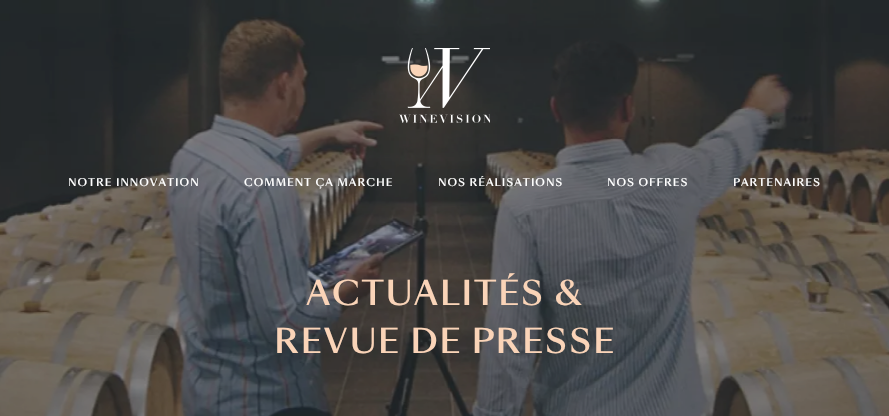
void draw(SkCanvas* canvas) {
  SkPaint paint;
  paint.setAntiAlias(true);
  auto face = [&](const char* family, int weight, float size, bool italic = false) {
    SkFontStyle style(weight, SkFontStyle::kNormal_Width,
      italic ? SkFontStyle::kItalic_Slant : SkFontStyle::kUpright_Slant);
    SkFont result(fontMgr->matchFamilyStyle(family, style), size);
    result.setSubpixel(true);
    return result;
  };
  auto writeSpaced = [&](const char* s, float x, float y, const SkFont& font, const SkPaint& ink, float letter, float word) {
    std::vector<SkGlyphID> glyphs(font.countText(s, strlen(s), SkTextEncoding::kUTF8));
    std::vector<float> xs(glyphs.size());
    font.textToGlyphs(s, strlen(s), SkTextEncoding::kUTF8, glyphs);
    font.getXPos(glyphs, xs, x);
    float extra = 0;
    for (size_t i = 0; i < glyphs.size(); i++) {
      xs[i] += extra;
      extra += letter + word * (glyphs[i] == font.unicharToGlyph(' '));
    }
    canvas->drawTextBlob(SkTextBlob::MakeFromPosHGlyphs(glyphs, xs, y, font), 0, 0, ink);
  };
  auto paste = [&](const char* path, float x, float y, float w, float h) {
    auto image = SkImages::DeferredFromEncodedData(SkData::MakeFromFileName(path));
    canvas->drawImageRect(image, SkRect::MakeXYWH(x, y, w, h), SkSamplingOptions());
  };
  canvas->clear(0xffffffff);
  paste("img/2.png", 0, 0, 889, 416);
  paste("img/1.png", 399, 48, 91, 75);
  auto f0 = face("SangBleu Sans", 500, 10);
  paint.setColor(0xffffffff);
  {
    const struct { const char* s; float x, y; } items[] = {
      {"NOTRE INNOVATION", 68, 186},
      {"COMMENT ÇA MARCHE", 244, 186},
      {"NOS RÉALISATIONS", 438, 186},
      {"NOS OFFRES", 607, 186},
      {"PARTENAIRES", 733, 186},
    };
    for (auto [s, x, y] : items) {
      writeSpaced(s, x, y, f0, paint, 1, 0);
    }
  }
  auto f1 = face("SangBleu Sans", 500, 32);
  paint.setColor(0xfffad4b8);
  writeSpaced("ACTUALITÉS &", 306, 305, f1, paint, 1.6f, 0);
  writeSpaced("REVUE DE PRESSE", 274, 353, f1, paint, 1.6f, 0);
}
